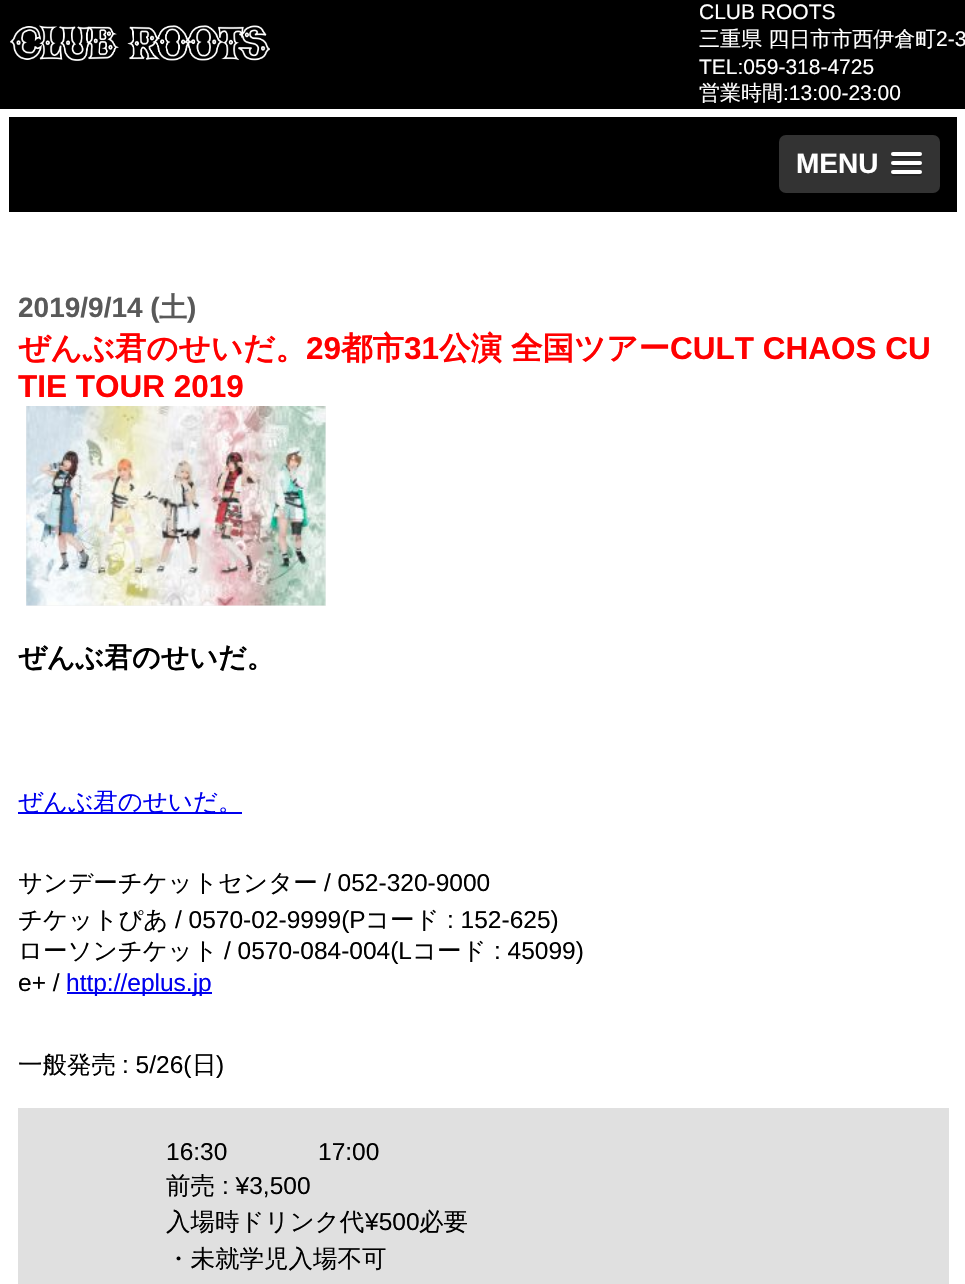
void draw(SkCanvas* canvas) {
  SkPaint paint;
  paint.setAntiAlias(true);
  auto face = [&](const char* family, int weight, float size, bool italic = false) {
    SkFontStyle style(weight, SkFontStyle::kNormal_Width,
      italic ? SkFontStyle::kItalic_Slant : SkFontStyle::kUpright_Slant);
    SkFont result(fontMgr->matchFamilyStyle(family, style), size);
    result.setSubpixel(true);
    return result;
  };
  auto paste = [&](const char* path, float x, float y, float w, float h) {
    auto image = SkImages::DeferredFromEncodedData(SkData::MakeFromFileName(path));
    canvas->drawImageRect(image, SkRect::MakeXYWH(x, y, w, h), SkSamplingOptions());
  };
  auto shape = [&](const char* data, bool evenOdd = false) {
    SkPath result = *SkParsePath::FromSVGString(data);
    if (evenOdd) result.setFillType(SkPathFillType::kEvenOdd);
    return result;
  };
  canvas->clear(0xffffffff);
  paint.setColor(0xff000000);
  canvas->drawRect(SkRect::MakeXYWH(0, 0, 965, 109), paint);
  paste("img/1.png", 10, 25, 260, 36);
  canvas->drawRect(SkRect::MakeXYWH(9, 117, 948, 95), paint);
  paint.setColor(0xff333333);
  canvas->drawRoundRect(SkRect::MakeXYWH(779, 135, 161, 58), 7, 7, paint);
  paint.setColor(0xff262626);
  canvas->drawPath(shape("M891 155C889.5 159 896.5 158 897.5 158H915.5C916.5 158 923.5 159 922 155L920.5 155.5H892.5Z"), paint);
  paint.setColor(0xffffffff);
  canvas->drawRoundRect(SkRect::MakeXYWH(891, 152, 31, 4), 2, 2, paint);
  paint.setColor(0xff262626);
  canvas->drawPath(shape("M891.5 164C889 168 897 167 897.5 167H915.5C916 167 924 168 921.5 164L920.5 164.5H892.5Z"), paint);
  paint.setColor(0xffffffff);
  canvas->drawRoundRect(SkRect::MakeXYWH(891, 161, 31, 4), 2, 2, paint);
  paint.setColor(0xff262626);
  canvas->drawPath(shape("M891.5 173L891 174.5C891.5 177 896.5 176 897.5 176H915.5C916.5 176 921.5 177 922 174.5L921.5 173C920.5 173.5 892.5 173.5 891.5 173Z"), paint);
  paint.setColor(0xffffffff);
  canvas->drawRoundRect(SkRect::MakeXYWH(891, 170, 31, 4), 2, 2, paint);
  paint.setColor(0xfff1f1f1);
  canvas->drawRect(SkRect::MakeXYWH(26, 406, 300, 200), paint);
  paste("img/2.png", 26, 406, 300, 200);
  {
    const struct { float x, y, w, h; SkColor color; } items[] = {
      {18, 812, 224, 2, 0xff0000ee},
      {67, 992, 145, 2, 0xff0000ee},
      {18, 1108, 931, 176, 0xffe0e0e0},
    };
    for (auto [x, y, w, h, color] : items) {
      paint.setColor(color);
      canvas->drawRect(SkRect::MakeXYWH(x, y, w, h), paint);
    }
  }
  auto f0 = face("Liberation Sans", 400, 21);
  paint.setColor(0xffffffff);
  canvas->drawString("CLUB ROOTS", 699, 19, f0, paint);
  auto f1 = face("WenQuanYi Zen Hei", 500, 21);
  canvas->drawString("三重県 四日市市西伊倉町", 699, 46, f1, paint);
  canvas->drawString("2-3", 936, 46, f0, paint);
  canvas->drawString("TEL:059-318-4725", 699, 74, f0, paint);
  canvas->drawString("営業時間", 699, 100, f1, paint);
  canvas->drawString(":13:00-23:00", 783, 100, f0, paint);
  auto f2 = face("Liberation Sans", 700, 28);
  canvas->drawString("MENU", 796, 173, f2, paint);
  paint.setColor(0xff595959);
  canvas->drawString("2019/9/14 (", 18, 317, f2, paint);
  auto f3 = face("WenQuanYi Zen Hei", 700, 28);
  canvas->drawString("土", 159, 317, f3, paint);
  canvas->drawString(")", 187, 317, f2, paint);
  auto f4 = face("WenQuanYi Zen Hei", 700, 31.5f);
  paint.setColor(0xffff0000);
  canvas->drawString("ぜんぶ君のせいだ。", 18, 359, f4, paint);
  auto f5 = face("Liberation Sans", 700, 31.5f);
  canvas->drawString("29", 306, 359, f5, paint);
  canvas->drawString("都市", 341, 359, f4, paint);
  canvas->drawString("31", 404, 359, f5, paint);
  canvas->drawString("公演", 439, 359, f4, paint);
  canvas->drawString("全国ツアー", 511, 359, f4, paint);
  canvas->drawString("CULT CHAOS CU", 670, 359, f5, paint);
  canvas->drawString("TIE TOUR 2019", 18, 397, f5, paint);
  paint.setColor(0xff000000);
  canvas->drawString("ぜんぶ君のせいだ。", 18, 667, f3, paint);
  auto f6 = face("WenQuanYi Zen Hei", 500, 24.5f);
  paint.setColor(0xff0000ee);
  canvas->drawString("ぜんぶ君のせいだ。", 18, 810, f6, paint);
  paint.setColor(0xff000000);
  canvas->drawString("サンデーチケットセンター", 18, 891, f6, paint);
  auto f7 = face("Liberation Sans", 400, 24.5f);
  canvas->drawString("/ 052-320-9000", 324, 891, f7, paint);
  canvas->drawString("チケットぴあ", 18, 928, f6, paint);
  canvas->drawString("/ 0570-02-9999(P", 175, 928, f7, paint);
  canvas->drawString("コード", 365, 928, f6, paint);
  canvas->drawString(": 152-625)", 447, 928, f7, paint);
  canvas->drawString("ローソンチケット", 18, 959, f6, paint);
  canvas->drawString("/ 0570-084-004(L", 224, 959, f7, paint);
  canvas->drawString("コード", 412, 959, f6, paint);
  canvas->drawString(": 45099)", 494, 959, f7, paint);
  canvas->drawString("e+ /", 18, 991, f7, paint);
  paint.setColor(0xff0000ee);
  canvas->drawString("http://eplus.jp", 66, 991, f7, paint);
  paint.setColor(0xff000000);
  canvas->drawString("一般発売", 18, 1073, f6, paint);
  canvas->drawString(": 5/26(", 122, 1073, f7, paint);
  canvas->drawString("日", 192, 1073, f6, paint);
  {
    const struct { const char* s; float x, y; } items[] = {
      {")", 216, 1073},
      {"16:30", 166, 1160},
      {"17:00", 318, 1160},
    };
    for (auto [s, x, y] : items) {
      canvas->drawString(s, x, y, f7, paint);
    }
  }
  canvas->drawString("前売", 166, 1194, f6, paint);
  canvas->drawString(": ¥3,500", 222, 1194, f7, paint);
  canvas->drawString("入場時ドリンク代", 166, 1230, f6, paint);
  canvas->drawString("¥500", 365, 1230, f7, paint);
  canvas->drawString("必要", 419, 1230, f6, paint);
  canvas->drawString("・未就学児入場不可", 166, 1267, f6, paint);
}
